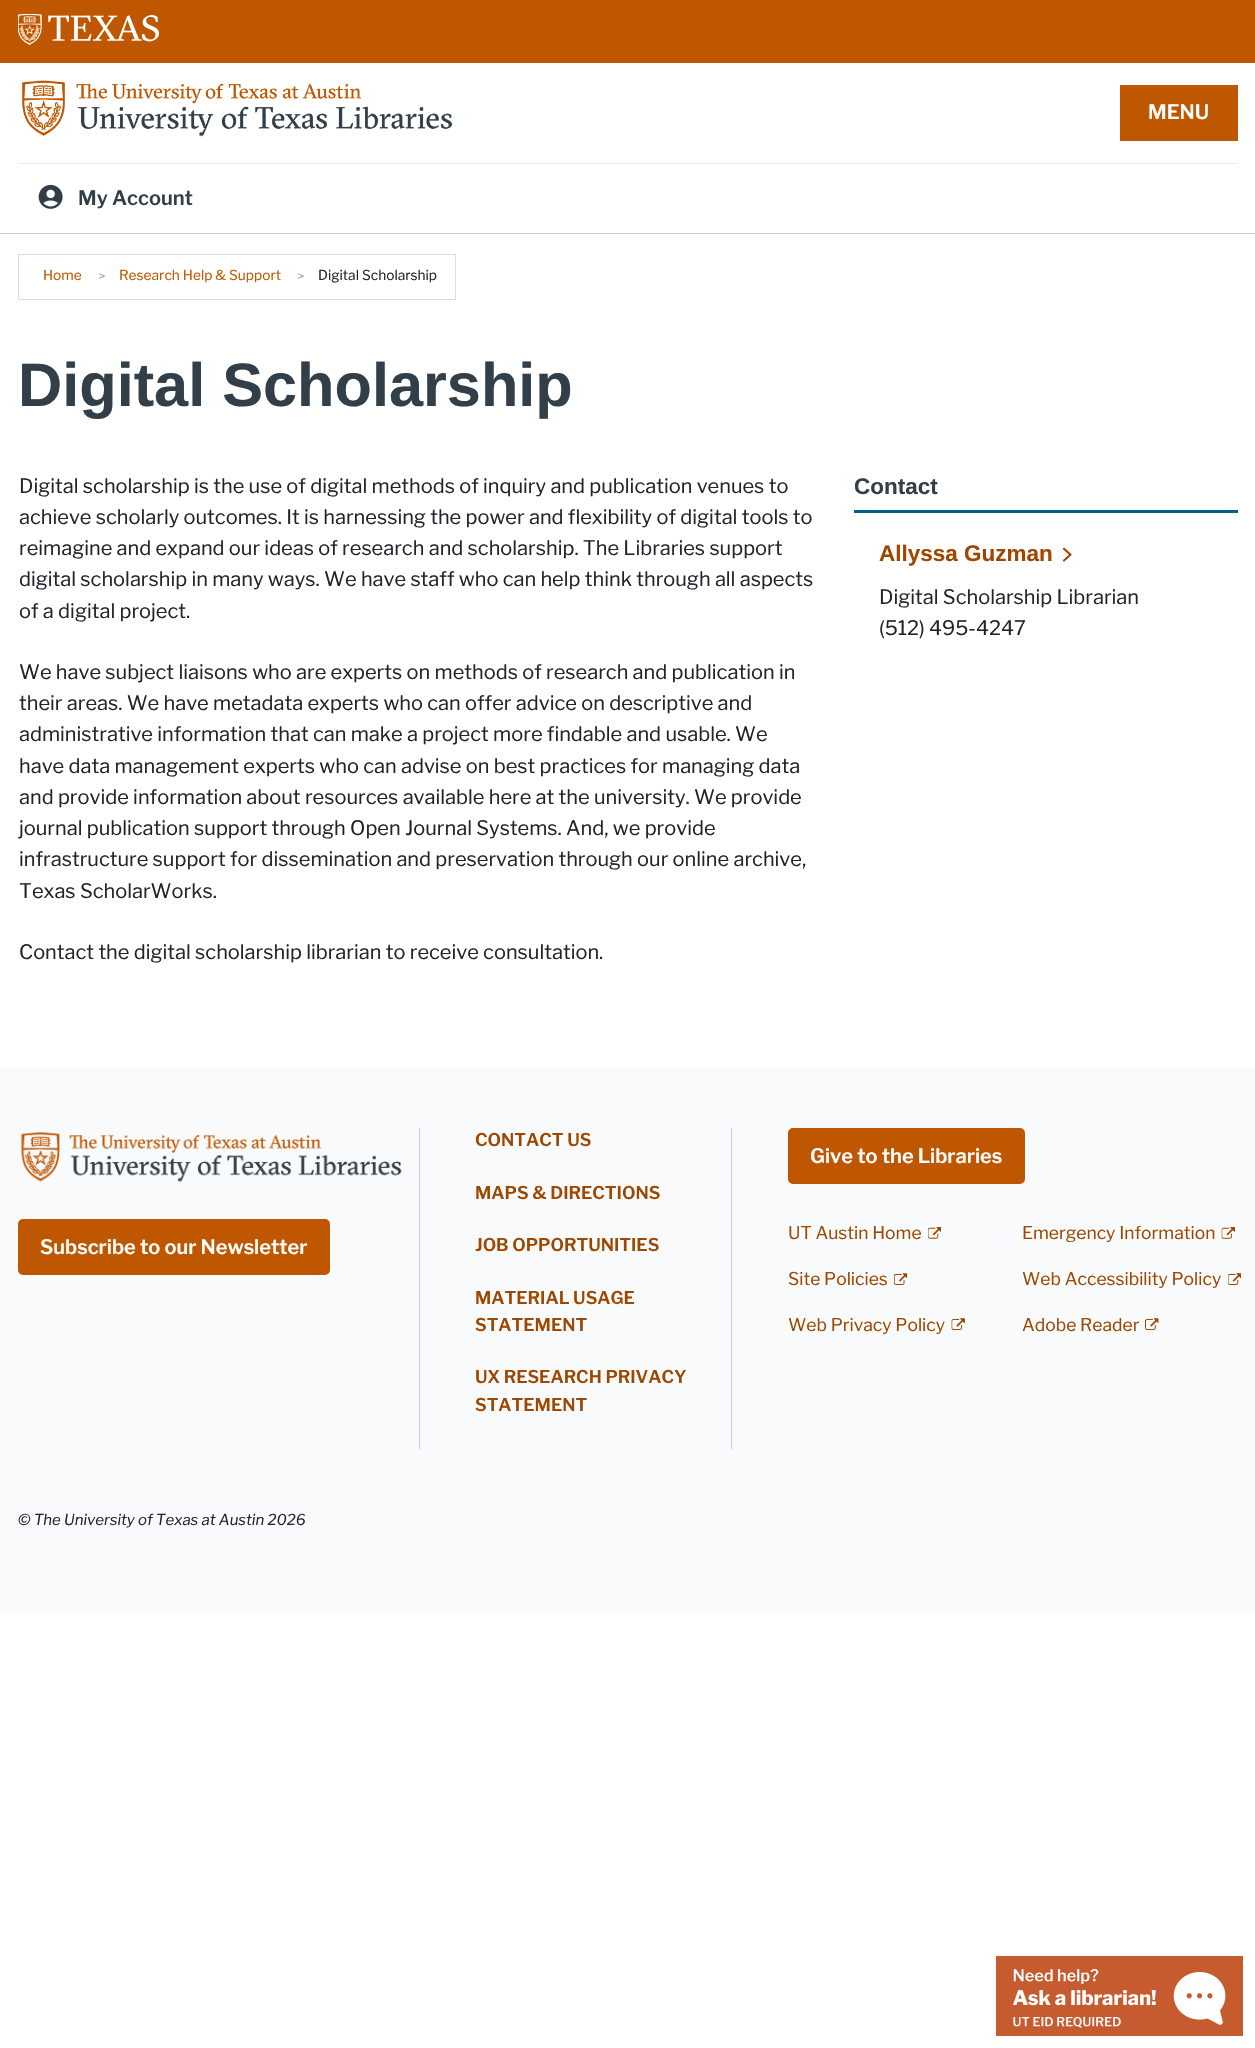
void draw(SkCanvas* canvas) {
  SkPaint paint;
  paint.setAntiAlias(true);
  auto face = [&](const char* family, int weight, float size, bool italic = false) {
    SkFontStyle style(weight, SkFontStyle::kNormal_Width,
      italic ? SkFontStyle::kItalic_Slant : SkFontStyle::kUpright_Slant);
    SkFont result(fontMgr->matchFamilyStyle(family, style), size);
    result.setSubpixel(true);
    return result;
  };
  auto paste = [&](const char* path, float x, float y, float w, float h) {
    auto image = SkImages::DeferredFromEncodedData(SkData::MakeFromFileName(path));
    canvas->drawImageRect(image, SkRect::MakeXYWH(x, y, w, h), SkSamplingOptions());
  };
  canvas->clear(0xffffffff);
  paint.setColor(0xffbf5700);
  canvas->drawRect(SkRect::MakeXYWH(0, 0, 1255, 63), paint);
  paste("img/1.png", 18, 14, 141, 31);
  paint.setColor(0xffc4cdd4);
  canvas->drawRect(SkRect::MakeXYWH(0, 233, 1255, 1), paint);
  paste("img/2.png", 22, 80, 431, 57);
  paint.setColor(0xffbf5700);
  canvas->drawRect(SkRect::MakeXYWH(1120, 85, 118, 56), paint);
  paint.setColor(0xfff0ede6);
  canvas->drawRect(SkRect::MakeXYWH(18, 163, 1220, 1), paint);
  paste("img/3.png", 38, 184, 25, 25);
  {
    const struct { float x, y, w, h; SkColor color; } items[] = {
      {18, 254, 438, 1, 0xffe1ddd2},
      {18, 299, 263, 1, 0xffe1ddd2},
      {18, 254, 1, 46, 0xffe1ddd2},
      {455, 254, 1, 46, 0xffe1ddd2},
      {281, 299, 175, 1, 0xffe1ddd2},
      {854, 510, 384, 3, 0xff005f86},
    };
    for (auto [x, y, w, h, color] : items) {
      paint.setColor(color);
      canvas->drawRect(SkRect::MakeXYWH(x, y, w, h), paint);
    }
  }
  paste("img/4.png", 1063, 547, 9, 15);
  paste("img/5.png", 996, 1956, 247, 80);
  paint.setColor(0xfff9fafb);
  canvas->drawRect(SkRect::MakeXYWH(0, 1068, 1255, 547), paint);
  paste("img/6.png", 21, 1132, 381, 51);
  paint.setColor(0xffbf5700);
  canvas->drawRoundRect(SkRect::MakeXYWH(19.5f, 1220.5f, 309, 53), 3.5f, 3.5f, paint);
  paint.setStroke(true);
  paint.setStrokeWidth(3);
  canvas->drawRoundRect(SkRect::MakeXYWH(19.5f, 1220.5f, 309, 53), 3.5f, 3.5f, paint);
  paint.setStroke(false);
  paint.setColor(0xffc4cdd4);
  canvas->drawRect(SkRect::MakeXYWH(419, 1128, 1, 321), paint);
  canvas->drawRect(SkRect::MakeXYWH(731, 1128, 1, 321), paint);
  paint.setColor(0xffbf5700);
  canvas->drawRoundRect(SkRect::MakeXYWH(789.5f, 1129.5f, 234, 53), 3.5f, 3.5f, paint);
  paint.setStroke(true);
  canvas->drawRoundRect(SkRect::MakeXYWH(789.5f, 1129.5f, 234, 53), 3.5f, 3.5f, paint);
  paste("img/7.png", 928, 1227, 13, 12);
  paste("img/8.png", 1221, 1227, 14, 12);
  paste("img/9.png", 894, 1273, 14, 12);
  paste("img/10.png", 1228, 1273, 13, 12);
  paste("img/11.png", 951, 1318, 14, 12);
  paste("img/12.png", 1145, 1318, 14, 12);
  auto f0 = face("Libre Franklin", 600, 20);
  paint.setStroke(false);
  paint.setColor(0xffffffff);
  canvas->drawString("MENU", 1148, 119, f0, paint);
  paint.setColor(0xff333f48);
  canvas->drawString("My Account", 78, 205, f0, paint);
  auto f1 = face("Libre Franklin", 400, 13.75f);
  paint.setColor(0xffbf5700);
  canvas->drawString("Home", 43, 280, f1, paint);
  paint.setColor(0xffaaaaaa);
  canvas->drawString(">", 98, 281, f1, paint);
  paint.setColor(0xffbf5700);
  canvas->drawString("Research Help & Support", 119, 280, f1, paint);
  paint.setColor(0xffaaaaaa);
  canvas->drawString(">", 297, 281, f1, paint);
  paint.setColor(0xff212529);
  canvas->drawString("Digital Scholarship", 318, 280, f1, paint);
  auto f2 = face("Liberation Sans", 700, 61.25f);
  paint.setColor(0xff333f48);
  canvas->drawString("Digital Scholarship", 18, 406, f2, paint);
  auto f3 = face("Libre Franklin", 400, 20);
  paint.setColor(0xff212529);
  {
    const struct { const char* s; float x, y; } items[] = {
      {"Digital scholarship is the use of digital methods of inquiry and publication venues to", 19, 493},
      {"achieve scholarly outcomes. It is harnessing the power and flexibility of digital tools to", 19, 524},
      {"reimagine and expand our ideas of research and scholarship. The Libraries support", 19, 555},
      {"digital scholarship in many ways. We have staff who can help think through all aspects", 19, 586},
      {"of a digital project.", 19, 618},
      {"We have subject liaisons who are experts on methods of research and publication in", 19, 679},
      {"their areas. We have metadata experts who can offer advice on descriptive and", 19, 710},
      {"administrative information that can make a project more findable and usable. We", 19, 741},
      {"have data management experts who can advise on best practices for managing data", 19, 773},
      {"and provide information about resources available here at the university. We provide", 19, 804},
      {"journal publication support through Open Journal Systems. And, we provide", 19, 835},
      {"infrastructure support for dissemination and preservation through our online archive,", 19, 866},
      {"Texas ScholarWorks.", 19, 898},
      {"Contact the digital scholarship librarian to receive consultation.", 19, 959},
    };
    for (auto [s, x, y] : items) {
      canvas->drawString(s, x, y, f3, paint);
    }
  }
  auto f4 = face("Liberation Sans", 700, 22.5f);
  paint.setColor(0xff333f48);
  canvas->drawString("Contact", 854, 494, f4, paint);
  paint.setColor(0xff9d4700);
  canvas->drawString("Allyssa Guzman", 879, 561, f4, paint);
  paint.setColor(0xff212529);
  canvas->drawString("Digital Scholarship Librarian", 879, 604, f3, paint);
  canvas->drawString("(512) 495-4247", 879, 635, f3, paint);
  paint.setColor(0xffffffff);
  canvas->drawString("Subscribe to our Newsletter", 40, 1254, f0, paint);
  auto f5 = face("Libre Franklin", 600, 17.5f);
  paint.setColor(0xff9d4700);
  {
    const struct { const char* s; float x, y; } items[] = {
      {"CONTACT US", 475, 1146},
      {"MAPS & DIRECTIONS", 475, 1199},
      {"JOB OPPORTUNITIES", 475, 1251},
      {"MATERIAL USAGE", 475, 1304},
      {"STATEMENT", 475, 1331},
      {"UX RESEARCH PRIVACY", 475, 1383},
      {"STATEMENT", 475, 1411},
    };
    for (auto [s, x, y] : items) {
      canvas->drawString(s, x, y, f5, paint);
    }
  }
  paint.setColor(0xffffffff);
  canvas->drawString("Give to the Libraries", 810, 1163, f0, paint);
  auto f6 = face("Libre Franklin", 400, 17.5f);
  paint.setColor(0xff9d4700);
  {
    const struct { const char* s; float x, y; } items[] = {
      {"UT Austin Home", 788, 1239},
      {"Emergency Information", 1022, 1239},
      {"Site Policies", 788, 1285},
      {"Web Accessibility Policy", 1022, 1285},
      {"Web Privacy Policy", 788, 1331},
      {"Adobe Reader", 1022, 1331},
    };
    for (auto [s, x, y] : items) {
      canvas->drawString(s, x, y, f6, paint);
    }
  }
  auto f7 = face("Libre Franklin", 400, 15, true);
  paint.setColor(0xff212529);
  canvas->drawString("© The University of Texas at Austin 2026", 18, 1525, f7, paint);
}
